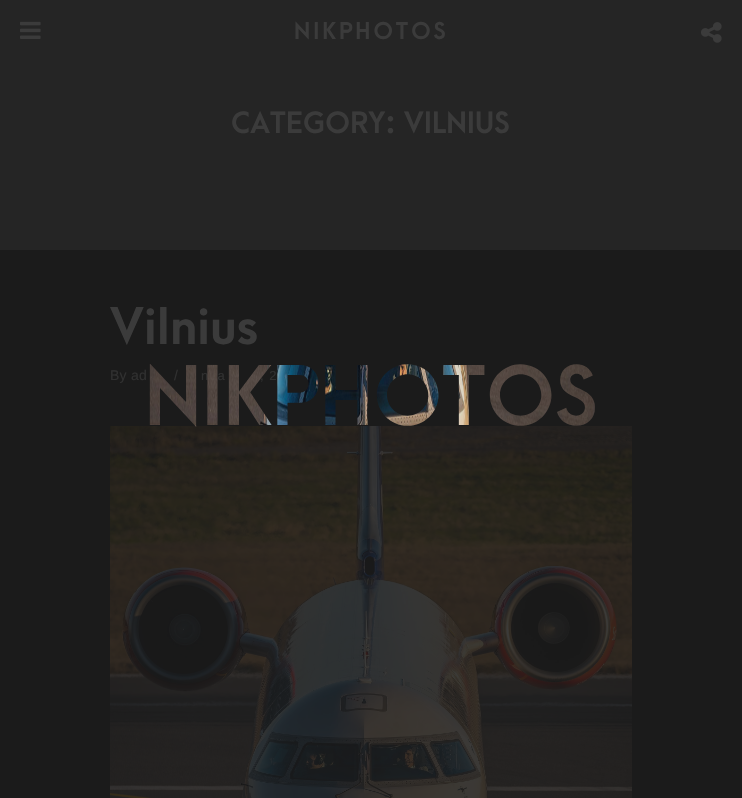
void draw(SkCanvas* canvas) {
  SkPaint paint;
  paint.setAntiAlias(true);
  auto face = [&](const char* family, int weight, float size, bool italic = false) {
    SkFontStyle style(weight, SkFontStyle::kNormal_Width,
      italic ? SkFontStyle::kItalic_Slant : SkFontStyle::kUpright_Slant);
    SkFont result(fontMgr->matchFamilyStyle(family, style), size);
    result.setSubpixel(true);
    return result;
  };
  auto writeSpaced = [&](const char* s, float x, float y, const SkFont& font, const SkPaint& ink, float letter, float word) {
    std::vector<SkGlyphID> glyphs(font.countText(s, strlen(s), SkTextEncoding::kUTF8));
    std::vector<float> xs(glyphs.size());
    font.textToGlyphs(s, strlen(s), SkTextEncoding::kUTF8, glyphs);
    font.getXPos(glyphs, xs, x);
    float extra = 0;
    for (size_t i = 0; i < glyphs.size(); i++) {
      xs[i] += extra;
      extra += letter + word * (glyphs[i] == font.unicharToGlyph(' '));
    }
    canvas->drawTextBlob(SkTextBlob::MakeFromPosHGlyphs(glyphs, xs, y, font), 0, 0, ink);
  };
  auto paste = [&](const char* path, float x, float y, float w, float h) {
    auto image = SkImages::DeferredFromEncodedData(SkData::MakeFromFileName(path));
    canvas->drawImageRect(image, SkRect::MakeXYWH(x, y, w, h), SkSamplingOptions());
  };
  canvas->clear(0xff252525);
  paste("img/1.png", 20, 21, 21, 18);
  paste("img/2.png", 701, 22, 21, 21);
  paint.setColor(0xff1b1b1b);
  canvas->drawRect(SkRect::MakeXYWH(0, 250, 742, 548), paint);
  paste("img/3.png", 110, 426, 522, 372);
  auto f0 = face("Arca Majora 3", 700, 22);
  paint.setColor(0xff3b3b3b);
  writeSpaced("NIKPHOTOS", 294, 39, f0, paint, 3, 0);
  auto f1 = face("Arca Majora 3", 700, 28);
  writeSpaced("CATEGORY: VILNIUS", 231, 133, f1, paint, 0.25f, 0);
  auto f2 = face("Arca Majora 3", 700, 48);
  writeSpaced("Vilnius", 110, 344, f2, paint, 0.25f, 0);
  auto f3 = face("Liberation Sans", 400, 14);
  paint.setColor(0xff303030);
  writeSpaced("By ad", 110, 380, f3, paint, 0.25f, 0);
  writeSpaced("/", 174, 380, f3, paint, 0.25f, 0);
  auto f4 = face("Liberation Sans", 400, 13);
  writeSpaced("nua", 201, 380, f4, paint, 1, 0);
  writeSpaced(", 2", 260, 380, f4, paint, 1, 0);
  paste("img/4.png", 149, 364, 446, 63);
}
